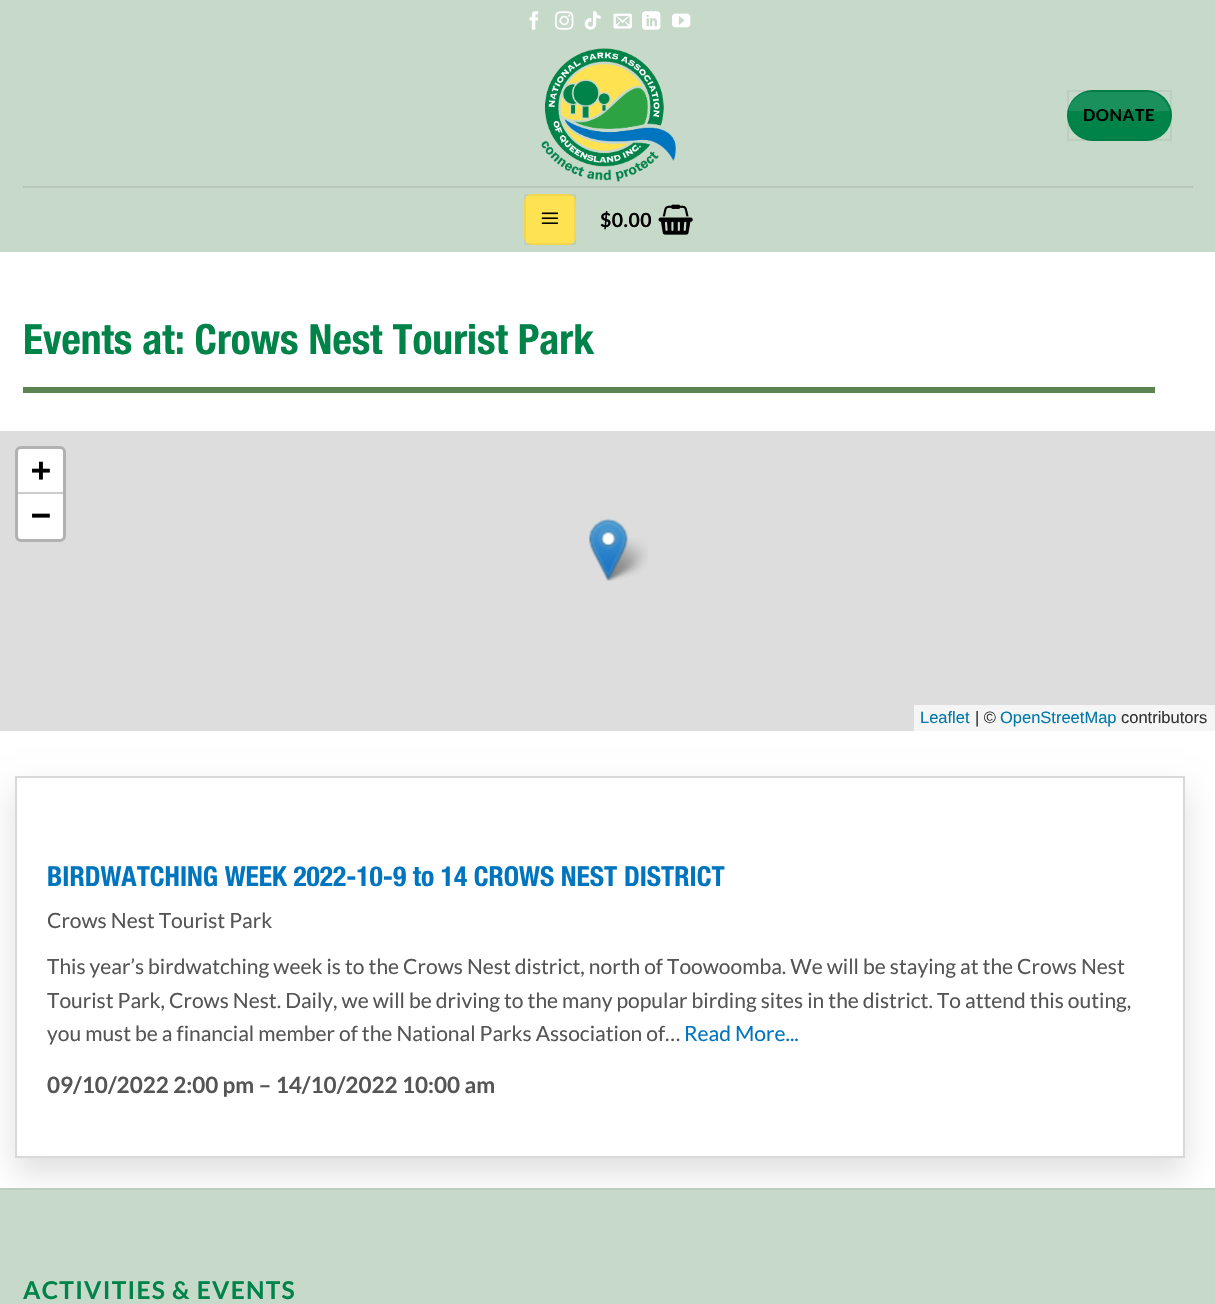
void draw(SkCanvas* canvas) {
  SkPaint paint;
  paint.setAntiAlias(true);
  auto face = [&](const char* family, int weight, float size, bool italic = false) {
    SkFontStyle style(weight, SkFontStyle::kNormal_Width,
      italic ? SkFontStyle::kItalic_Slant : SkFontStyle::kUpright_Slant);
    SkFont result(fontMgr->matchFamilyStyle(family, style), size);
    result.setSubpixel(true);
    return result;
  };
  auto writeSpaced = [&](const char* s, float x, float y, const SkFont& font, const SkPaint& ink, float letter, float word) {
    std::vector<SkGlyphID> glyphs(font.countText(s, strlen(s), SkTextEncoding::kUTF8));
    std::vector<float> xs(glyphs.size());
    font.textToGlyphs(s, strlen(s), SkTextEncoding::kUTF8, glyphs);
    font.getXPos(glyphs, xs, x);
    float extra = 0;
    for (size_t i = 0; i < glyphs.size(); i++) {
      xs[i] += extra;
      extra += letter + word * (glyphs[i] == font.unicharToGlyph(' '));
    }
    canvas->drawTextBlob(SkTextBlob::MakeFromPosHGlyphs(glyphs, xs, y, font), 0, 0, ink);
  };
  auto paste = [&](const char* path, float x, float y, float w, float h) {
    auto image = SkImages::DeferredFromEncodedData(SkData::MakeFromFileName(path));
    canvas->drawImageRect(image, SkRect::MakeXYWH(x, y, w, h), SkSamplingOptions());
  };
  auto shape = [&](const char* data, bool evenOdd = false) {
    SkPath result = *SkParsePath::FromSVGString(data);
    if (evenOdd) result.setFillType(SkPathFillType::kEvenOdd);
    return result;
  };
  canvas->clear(0xffffffff);
  paint.setColor(0xffc7d9c9);
  canvas->drawRect(SkRect::MakeXYWH(0, 0, 1215, 252), paint);
  paste("img/1.png", 529, 11, 10, 19);
  paste("img/2.png", 555, 11, 19, 19);
  paste("img/3.png", 584, 11, 17, 19);
  paste("img/4.png", 613, 13, 19, 16);
  paste("img/5.png", 642, 11, 19, 19);
  paste("img/6.png", 672, 13, 19, 15);
  paste("img/7.png", 541, 48, 135, 134);
  paint.setColor(0xff008349);
  canvas->drawRoundRect(SkRect::MakeXYWH(1067, 90, 105, 51), 25.5f, 25.5f, paint);
  paint.setStroke(true);
  paint.setStrokeWidth(2);
  paint.setColor(0x0d000000);
  canvas->drawRect(SkRect::MakeXYWH(1068, 91, 103, 49), paint);
  canvas->save();
  canvas->clipPath(shape("M1092 92H1146C1159.5 92 1170 102.5 1170 116C1170 129.5 1159.5 140 1146 140H1092C1078.5 140 1068 129.5 1068 116C1068 102.5 1078.5 92 1092 92Z"), true);
  paint.setStroke(false);
  paint.setColor(0x1affffff);
  canvas->drawRect(SkRect::MakeXYWH(1068, 92, 102, 19), paint);
  canvas->restore();
  paint.setColor(0xffb8c9ba);
  canvas->drawRect(SkRect::MakeXYWH(23, 186, 1170, 2), paint);
  paint.setColor(0xfffee252);
  canvas->drawRoundRect(SkRect::MakeXYWH(524, 194, 52, 51), 8, 8, paint);
  paint.setStroke(true);
  paint.setColor(0x0d000000);
  canvas->drawRect(SkRect::MakeXYWH(525, 195, 50, 49), paint);
  paste("img/8.png", 541, 212, 18, 12);
  paste("img/9.png", 658, 204, 35, 31);
  paint.setStroke(false);
  paint.setColor(0xff5c8352);
  canvas->drawRect(SkRect::MakeXYWH(23, 387, 1132, 6), paint);
  paint.setColor(0xffdddddd);
  canvas->drawRect(SkRect::MakeXYWH(0, 431, 1215, 300), paint);
  paint.setStroke(true);
  paint.setStrokeWidth(3);
  paint.setColor(0xffb1b1b1);
  canvas->drawRoundRect(SkRect::MakeXYWH(16.5f, 447.5f, 48, 93), 4.5f, 4.5f, paint);
  paint.setStroke(false);
  paint.setColor(0xffffffff);
  canvas->drawPath(shape("M21 449H60C61.5 449 63 450.5 63 452V494H18V452C18 450.5 19.5 449 21 449Z"), paint);
  paint.setColor(0xffcccccc);
  canvas->drawRect(SkRect::MakeXYWH(18, 492, 45, 2), paint);
  paint.setColor(0xffffffff);
  canvas->drawPath(shape("M18 494H63V536C63 537.5 61.5 539 60 539H21C19.5 539 18 537.5 18 536Z"), paint);
  paint.setColor(0xfff5f5f5);
  canvas->drawRect(SkRect::MakeXYWH(914, 705, 301, 26), paint);
  paste("img/11.png", 603, 538, 45, 43);
  paste("img/10.png", 589, 518, 39, 63);
  canvas->save();
  canvas->clipPath(shape("M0 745H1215V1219H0ZM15 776H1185V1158H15Z", true), true);
  paint.setColor(0xffdfdfdf);
  paint.setMaskFilter(SkMaskFilter::MakeBlur(kNormal_SkBlurStyle, 15));
  canvas->drawRect(SkRect::MakeXYWH(15, 791, 1170, 382), paint);
  paint.setMaskFilter(nullptr);
  canvas->restore();
  paint.setStroke(true);
  paint.setStrokeWidth(2);
  paint.setColor(0xffd9d9d9);
  canvas->drawRect(SkRect::MakeXYWH(16, 777, 1168, 380), paint);
  paint.setStroke(false);
  paint.setColor(0xffc7d9c9);
  canvas->drawRect(SkRect::MakeXYWH(0, 1190, 1215, 114), paint);
  paint.setColor(0xffbdcebf);
  canvas->drawRect(SkRect::MakeXYWH(0, 1188, 1215, 2), paint);
  auto f0 = face("Lato", 700, 16.5f);
  paint.setColor(0xff000000);
  writeSpaced("DONATE", 1083, 121, f0, paint, 0.5f, 0);
  auto f1 = face("Lato", 700, 19.5f);
  writeSpaced("$0.00", 600, 227, f1, paint, 0.5f, 0);
  auto f2 = face("Helvetica Neue", 700, 41.6f);
  paint.setColor(0xff008349);
  canvas->drawString("Events at: Crows Nest Tourist Park", 23, 354, f2, paint);
  auto f3 = face("DejaVu Sans Mono", 700, 33);
  paint.setColor(0xff000000);
  canvas->drawString("+", 31, 481, f3, paint);
  canvas->drawString("−", 31, 526, f3, paint);
  auto f4 = face("Liberation Sans", 400, 16.5f);
  paint.setColor(0xff0078a8);
  canvas->drawString("Leaflet", 920, 723, f4, paint);
  paint.setColor(0xff333333);
  canvas->drawString("| ©", 975, 723, f4, paint);
  paint.setColor(0xff0078a8);
  canvas->drawString("OpenStreetMap", 1000, 723, f4, paint);
  paint.setColor(0xff333333);
  canvas->drawString("contributors", 1121, 723, f4, paint);
  auto f5 = face("Helvetica Neue", 700, 27.5f);
  paint.setColor(0xff0075bf);
  canvas->drawString("BIRDWATCHING WEEK 2022-10-9 to 14 CROWS NEST DISTRICT", 47, 886, f5, paint);
  auto f6 = face("Lato", 400, 21);
  paint.setColor(0xff555555);
  {
    const struct { const char* s; float x, y; } items[] = {
      {"Crows Nest Tourist Park", 47, 928},
      {"This year’s birdwatching week is to the Crows Nest district, north of Toowoomba. We will be staying at the Crows Nest", 47, 974},
      {"Tourist Park, Crows Nest. Daily, we will be driving to the many popular birding sites in the district. To attend this outing,", 47, 1008},
      {"you must be a financial member of the National Parks Association of…", 47, 1041},
    };
    for (auto [s, x, y] : items) {
      canvas->drawString(s, x, y, f6, paint);
    }
  }
  paint.setColor(0xff0075bf);
  canvas->drawString("Read More...", 684, 1041, f6, paint);
  auto f7 = face("Lato", 700, 22.5f);
  paint.setColor(0xff555555);
  canvas->drawString("09/10/2022 2:00 pm – 14/10/2022 10:00 am", 47, 1093, f7, paint);
  auto f8 = face("Lato", 700, 24.5f);
  paint.setColor(0xff008349);
  writeSpaced("ACTIVITIES & EVENTS", 23, 1299, f8, paint, 1.25f, 0);
}
